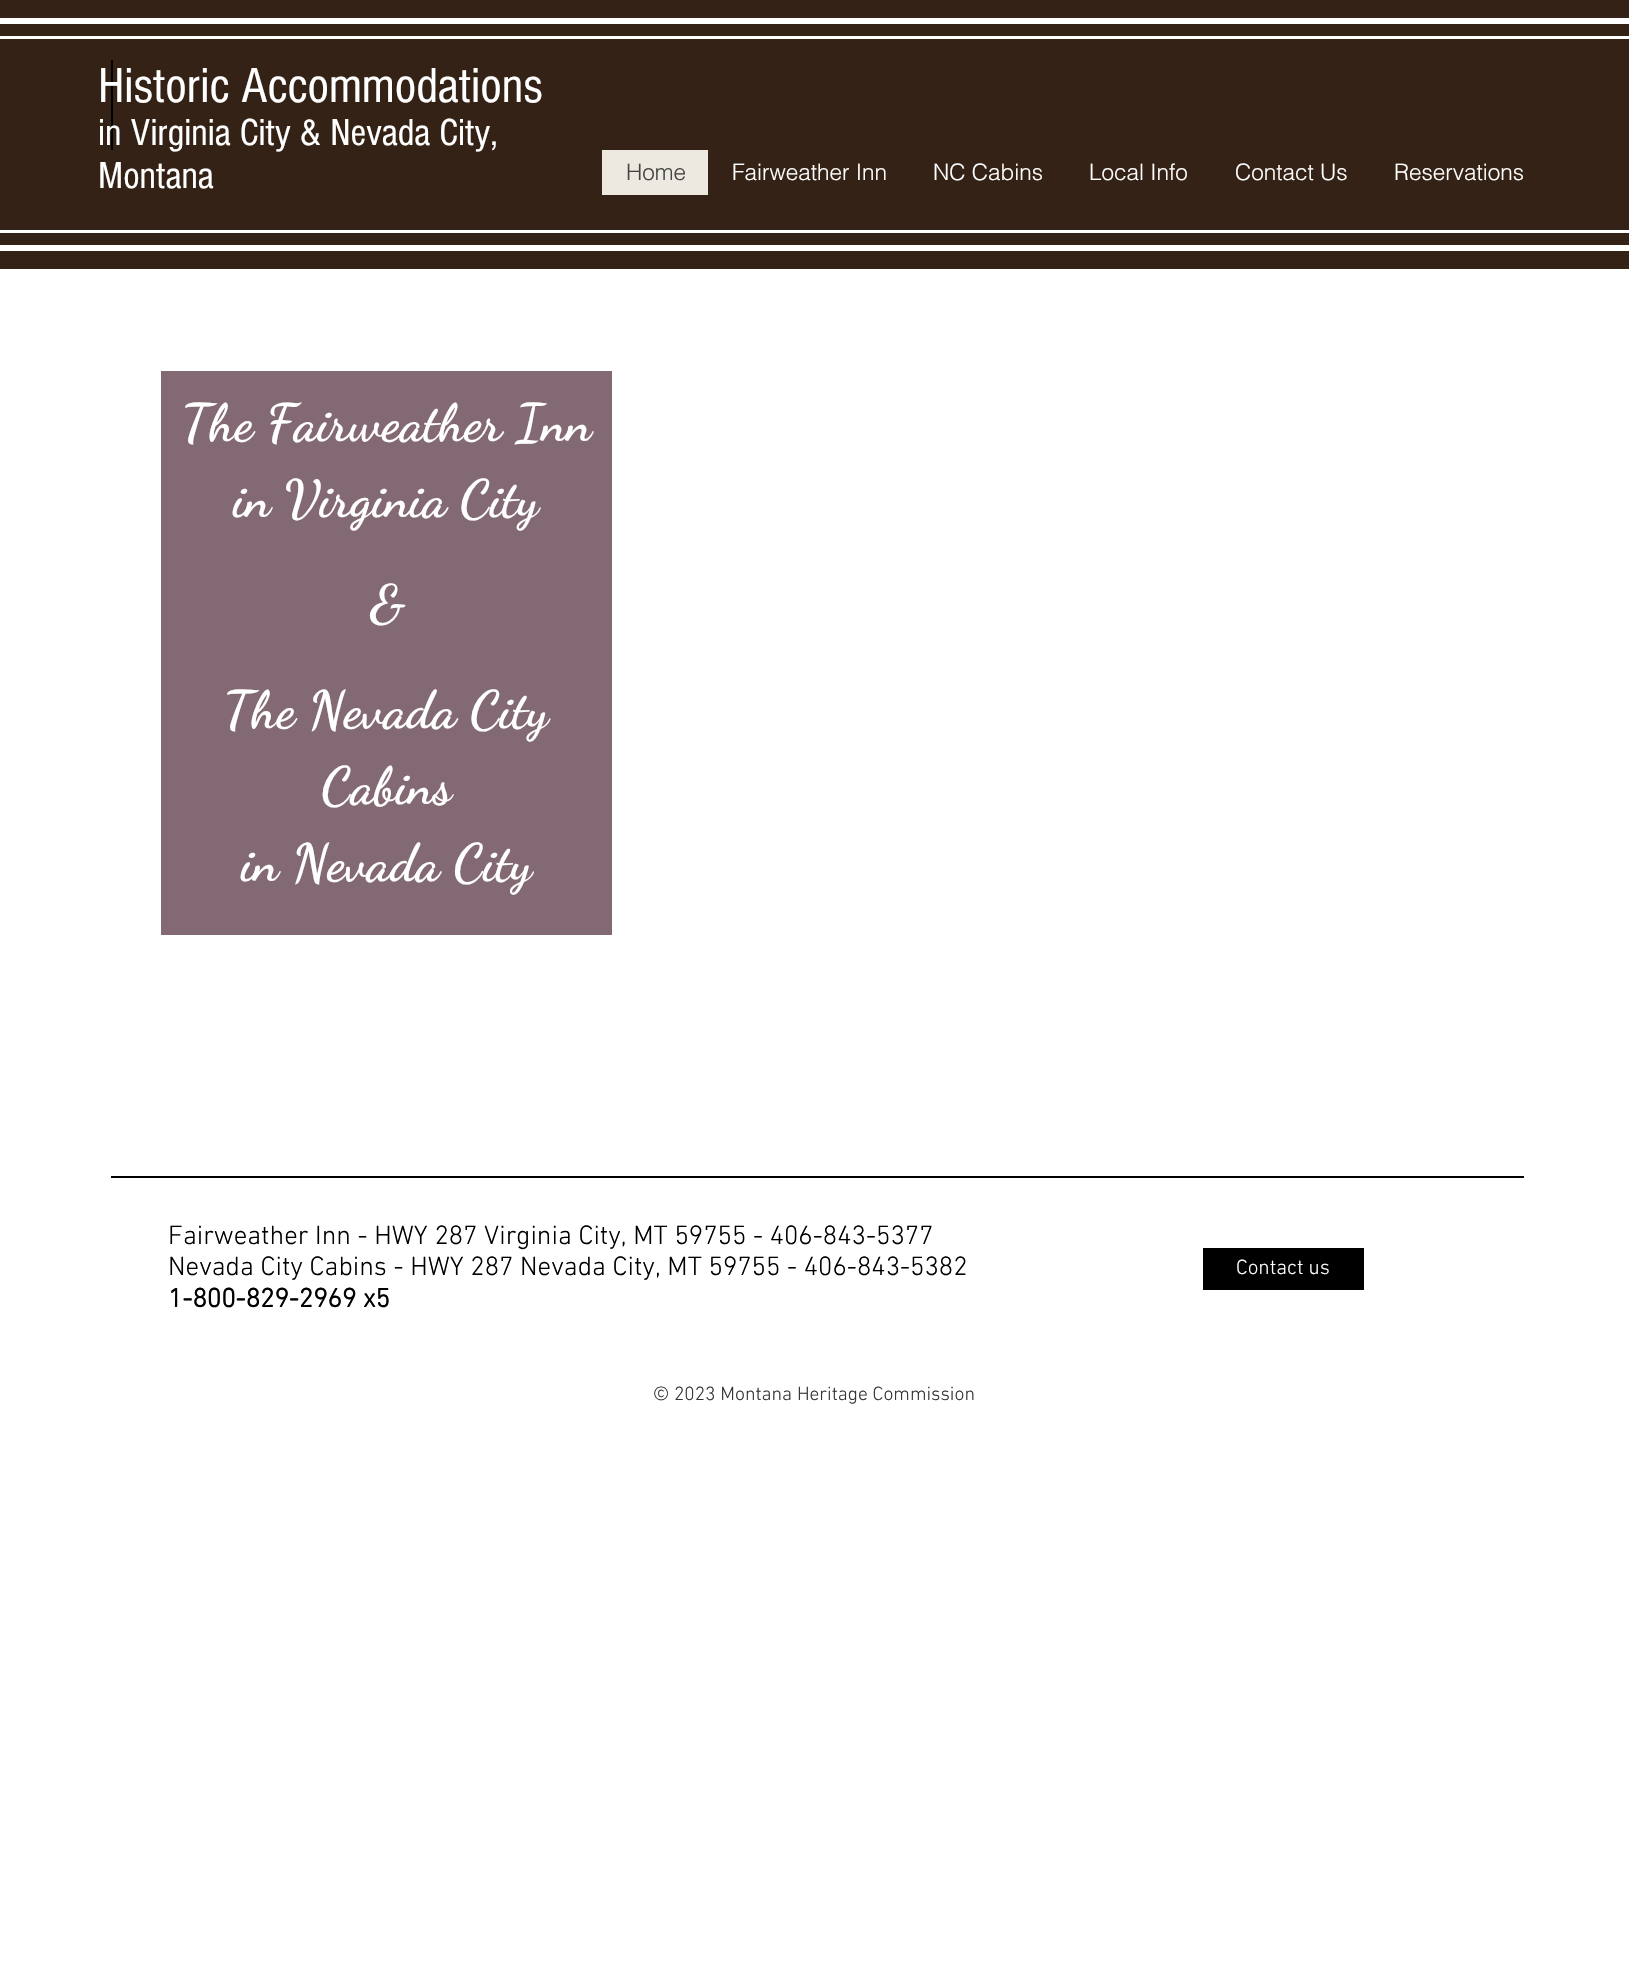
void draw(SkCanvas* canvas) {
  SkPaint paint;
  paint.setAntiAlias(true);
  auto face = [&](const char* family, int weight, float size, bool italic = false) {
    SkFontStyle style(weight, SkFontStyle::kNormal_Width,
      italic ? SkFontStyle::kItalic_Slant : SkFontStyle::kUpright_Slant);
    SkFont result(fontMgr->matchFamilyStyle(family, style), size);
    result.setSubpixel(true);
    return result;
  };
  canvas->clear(0xffffffff);
  {
    const struct { float x, y, w, h; SkColor color; } items[] = {
      {0, 0, 1629, 269, 0xff342216},
      {0, 18, 1629, 6, 0xffffffff},
      {0, 245, 1629, 6, 0xffffffff},
      {0, 36, 1629, 3, 0xffffffff},
      {0, 230, 1629, 3, 0xffffffff},
      {111, 60, 2, 90, 0xff000000},
      {602, 150, 106, 45, 0xffede9e1},
      {161, 371, 451, 564, 0xff836974},
      {111, 1176, 1413, 2, 0xff000000},
      {1203, 1248, 161, 42, 0xff000000},
    };
    for (auto [x, y, w, h, color] : items) {
      paint.setColor(color);
      canvas->drawRect(SkRect::MakeXYWH(x, y, w, h), paint);
    }
  }
  auto f0 = face("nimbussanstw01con", 400, 51);
  paint.setColor(0xffffffff);
  canvas->drawString("Historic Accommodations", 98, 102, f0, paint);
  auto f1 = face("nimbussanstw01con", 400, 39);
  canvas->drawString("in Virginia City & Nevada City,", 98, 145, f1, paint);
  canvas->drawString("Montana", 98, 188, f1, paint);
  auto f2 = face("helvetica", 300, 22.5f);
  paint.setColor(0xff444444);
  canvas->drawString("Home", 626, 180, f2, paint);
  paint.setColor(0xffffffff);
  {
    const struct { const char* s; float x, y; } items[] = {
      {"Fairweather Inn", 732, 180},
      {"NC Cabins", 933, 180},
      {"Local Info", 1089, 180},
      {"Contact Us", 1235, 180},
      {"Reservations", 1394, 180},
    };
    for (auto [s, x, y] : items) {
      canvas->drawString(s, x, y, f2, paint);
    }
  }
  auto f3 = face("Dancing Script", 700, 52.5f);
  {
    const struct { const char* s; float x, y; } items[] = {
      {"The Fairweather Inn", 181, 440},
      {"in Virginia City", 233, 516},
      {"&", 369, 621},
      {"The Nevada City", 223, 727},
      {"Cabins", 321, 803},
      {"in Nevada City", 241, 880},
    };
    for (auto [s, x, y] : items) {
      canvas->drawString(s, x, y, f3, paint);
    }
  }
  auto f4 = face("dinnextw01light", 300, 27);
  paint.setColor(0xff000000);
  canvas->drawString("Fairweather Inn - HWY 287 Virginia City, MT 59755 - 406-843-5377", 168, 1244, f4, paint);
  canvas->drawString("Nevada City Cabins - HWY 287 Nevada City, MT 59755 - 406-843-5382", 168, 1275, f4, paint);
  auto f5 = face("dinnextw01light", 700, 27);
  canvas->drawString("1-800-829-2969 x5", 168, 1307, f5, paint);
  auto f6 = face("dinnextw01light", 300, 21);
  paint.setColor(0xffffffff);
  canvas->drawString("Contact us", 1236, 1274, f6, paint);
  auto f7 = face("dinnextw01light", 300, 19.5f);
  paint.setColor(0xff333333);
  canvas->drawString("© 2023 Montana Heritage Commission", 653, 1400, f7, paint);
}
